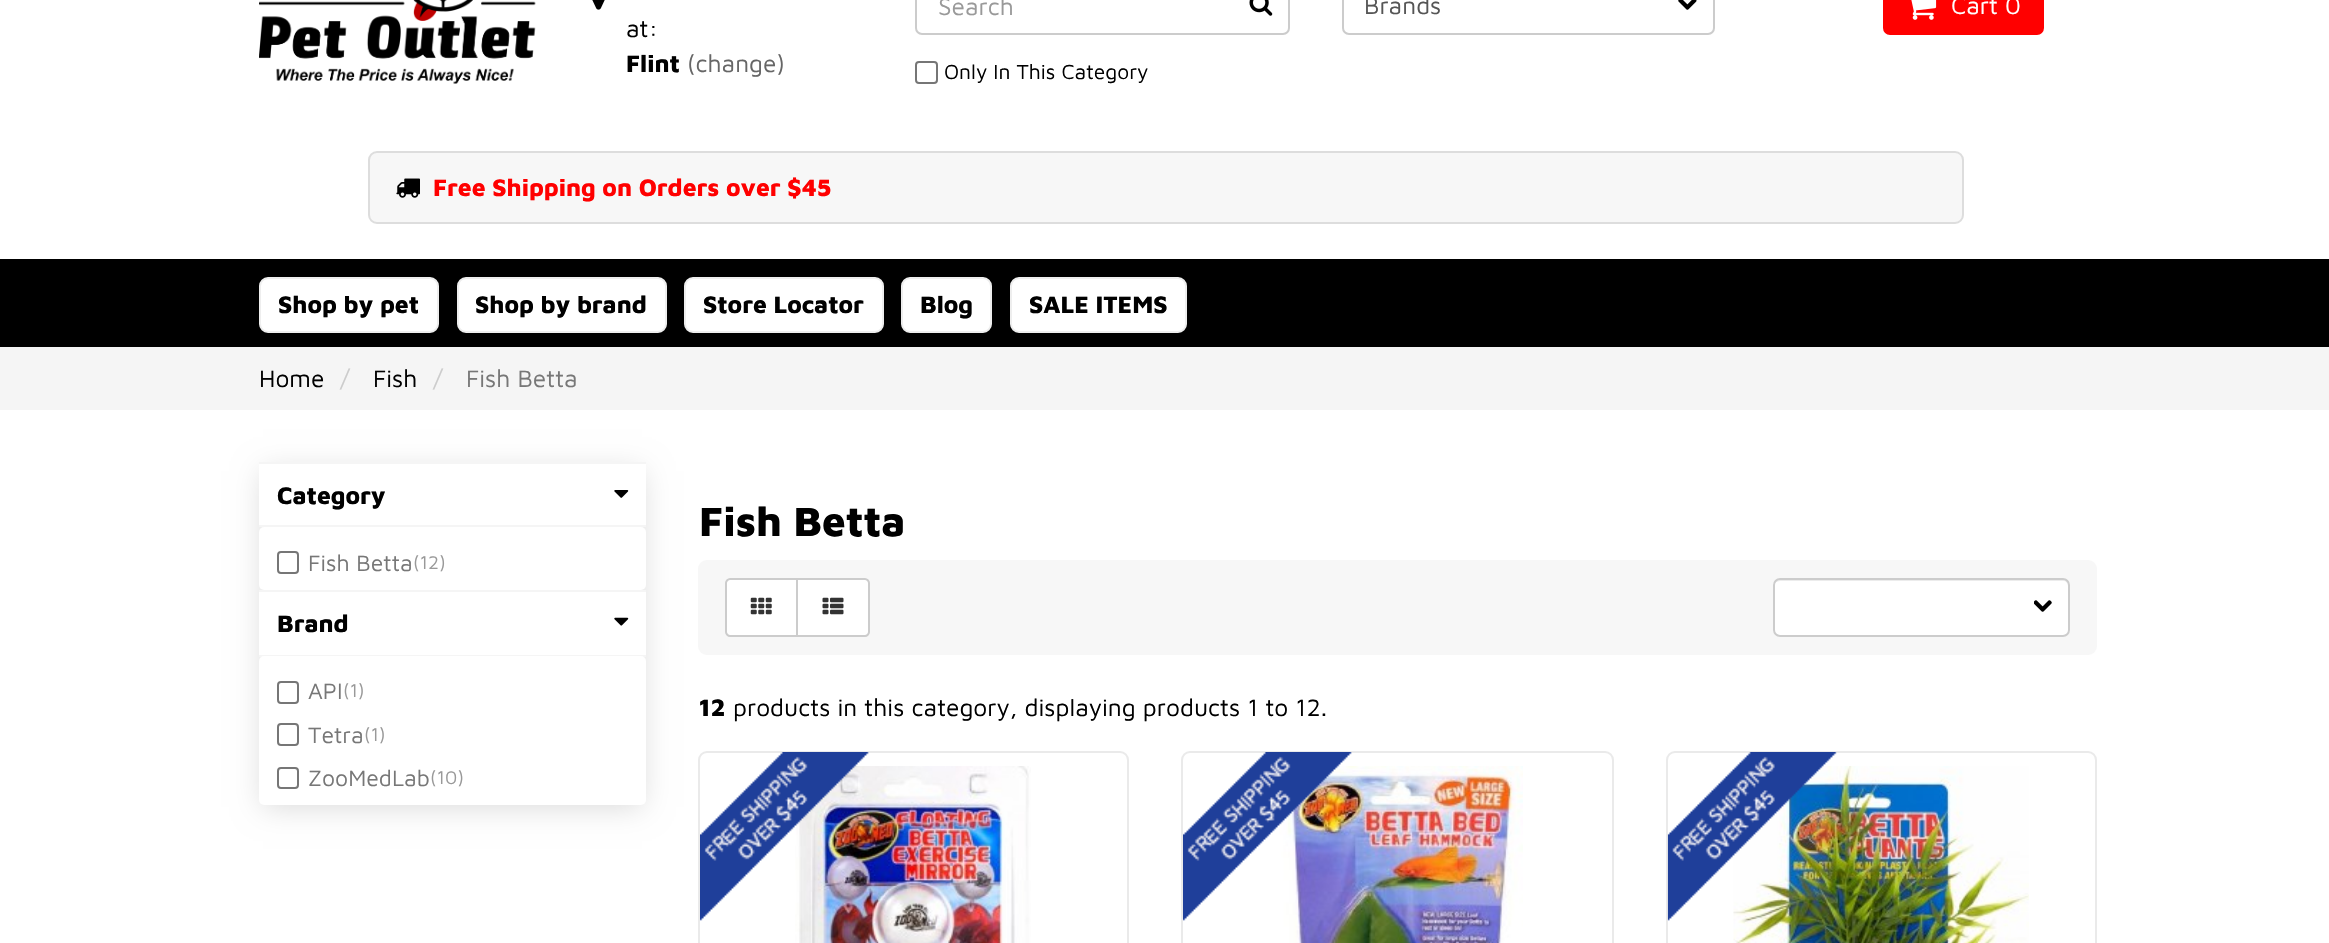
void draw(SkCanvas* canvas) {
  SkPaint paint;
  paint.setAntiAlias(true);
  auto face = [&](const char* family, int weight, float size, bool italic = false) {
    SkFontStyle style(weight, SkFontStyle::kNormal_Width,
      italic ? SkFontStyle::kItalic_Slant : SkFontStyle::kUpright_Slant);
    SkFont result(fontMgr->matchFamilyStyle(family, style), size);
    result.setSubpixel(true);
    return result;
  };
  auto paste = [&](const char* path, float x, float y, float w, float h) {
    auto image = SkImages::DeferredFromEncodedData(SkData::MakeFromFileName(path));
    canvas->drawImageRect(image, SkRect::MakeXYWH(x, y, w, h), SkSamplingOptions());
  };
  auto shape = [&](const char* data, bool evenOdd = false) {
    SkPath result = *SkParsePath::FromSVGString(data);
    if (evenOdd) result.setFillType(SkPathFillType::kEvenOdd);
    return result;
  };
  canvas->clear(0xffffffff);
  paste("img/1.png", 259, 0, 277, 84);
  paint.setStroke(true);
  paint.setStrokeWidth(2);
  paint.setColor(0xffcccccc);
  canvas->drawRoundRect(SkRect::MakeXYWH(916, -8, 373, 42), 6, 6, paint);
  paint.setColor(0xff767676);
  canvas->drawRoundRect(SkRect::MakeXYWH(916, 62, 21, 21), 3, 3, paint);
  paste("img/2.png", 1249, 0, 24, 16);
  paste("img/3.png", 1678, 0, 19, 10);
  paint.setColor(0xffcccccc);
  canvas->drawRoundRect(SkRect::MakeXYWH(1343, -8, 371, 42), 6, 6, paint);
  paint.setStroke(false);
  paint.setColor(0xffff0000);
  canvas->drawRoundRect(SkRect::MakeXYWH(1884, -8, 159, 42), 6, 6, paint);
  paint.setStroke(true);
  canvas->drawRoundRect(SkRect::MakeXYWH(1884, -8, 159, 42), 6, 6, paint);
  paste("img/4.png", 1911, 0, 26, 20);
  paste("img/5.png", 592, 0, 13, 10);
  paint.setStroke(false);
  paint.setColor(0xfff7f7f7);
  canvas->drawRoundRect(SkRect::MakeXYWH(369, 152, 1594, 71), 8, 8, paint);
  paint.setStroke(true);
  paint.setColor(0xffdddddd);
  canvas->drawRoundRect(SkRect::MakeXYWH(369, 152, 1594, 71), 8, 8, paint);
  paste("img/6.png", 396, 178, 24, 20);
  paint.setStroke(false);
  paint.setColor(0xff000000);
  canvas->drawRect(SkRect::MakeXYWH(0, 259, 2329, 88), paint);
  paint.setColor(0xffffffff);
  canvas->drawRoundRect(SkRect::MakeXYWH(260, 278, 178, 54), 8, 8, paint);
  paint.setStroke(true);
  paint.setColor(0xffeeeeee);
  canvas->drawRoundRect(SkRect::MakeXYWH(260, 278, 178, 54), 8, 8, paint);
  paint.setStroke(false);
  paint.setColor(0xffffffff);
  canvas->drawRoundRect(SkRect::MakeXYWH(458, 278, 208, 54), 8, 8, paint);
  paint.setStroke(true);
  paint.setColor(0xffeeeeee);
  canvas->drawRoundRect(SkRect::MakeXYWH(458, 278, 208, 54), 8, 8, paint);
  paint.setStroke(false);
  paint.setColor(0xffffffff);
  canvas->drawRoundRect(SkRect::MakeXYWH(685, 278, 198, 54), 8, 8, paint);
  paint.setStroke(true);
  paint.setColor(0xffeeeeee);
  canvas->drawRoundRect(SkRect::MakeXYWH(685, 278, 198, 54), 8, 8, paint);
  paint.setStroke(false);
  paint.setColor(0xffffffff);
  canvas->drawRoundRect(SkRect::MakeXYWH(902, 278, 89, 54), 8, 8, paint);
  paint.setStroke(true);
  paint.setColor(0xffeeeeee);
  canvas->drawRoundRect(SkRect::MakeXYWH(902, 278, 89, 54), 8, 8, paint);
  paint.setStroke(false);
  paint.setColor(0xffffffff);
  canvas->drawRoundRect(SkRect::MakeXYWH(1011, 278, 175, 54), 8, 8, paint);
  paint.setStroke(true);
  paint.setColor(0xffeeeeee);
  canvas->drawRoundRect(SkRect::MakeXYWH(1011, 278, 175, 54), 8, 8, paint);
  paint.setStroke(false);
  paint.setColor(0xfff5f5f5);
  canvas->drawRect(SkRect::MakeXYWH(0, 347, 2329, 63), paint);
  paint.setColor(0x26000000);
  paint.setMaskFilter(SkMaskFilter::MakeBlur(kNormal_SkBlurStyle, 14));
  canvas->drawRect(SkRect::MakeXYWH(263, 471, 379, 336), paint);
  paint.setMaskFilter(nullptr);
  {
    const struct { float x, y, w, h; SkColor color; } items[] = {
      {259, 464, 387, 61, 0xffffffff},
      {259, 462, 387, 2, 0xfff5f5f5},
      {259, 525, 387, 2, 0xfff5f5f5},
    };
    for (auto [x, y, w, h, color] : items) {
      paint.setColor(color);
      canvas->drawRect(SkRect::MakeXYWH(x, y, w, h), paint);
    }
  }
  paste("img/7.png", 614, 490, 15, 8);
  paint.setColor(0xffffffff);
  canvas->drawRoundRect(SkRect::MakeXYWH(259, 527, 387, 63), 5, 5, paint);
  paint.setStroke(true);
  paint.setColor(0xff767676);
  canvas->drawRoundRect(SkRect::MakeXYWH(278, 552, 20, 21), 3, 3, paint);
  paint.setStroke(false);
  {
    const struct { float x, y, w, h; SkColor color; } items[] = {
      {259, 592, 387, 63, 0xffffffff},
      {259, 590, 387, 2, 0xfff5f5f5},
      {259, 655, 387, 2, 0xfff5f5f5},
    };
    for (auto [x, y, w, h, color] : items) {
      paint.setColor(color);
      canvas->drawRect(SkRect::MakeXYWH(x, y, w, h), paint);
    }
  }
  paste("img/8.png", 614, 617, 15, 9);
  paint.setColor(0xffffffff);
  canvas->drawRoundRect(SkRect::MakeXYWH(259, 656, 387, 149), 5, 5, paint);
  paint.setStroke(true);
  paint.setColor(0xff767676);
  canvas->drawRoundRect(SkRect::MakeXYWH(278, 682, 20, 21), 3, 3, paint);
  canvas->drawRoundRect(SkRect::MakeXYWH(278, 724, 20, 21), 3, 3, paint);
  canvas->drawRoundRect(SkRect::MakeXYWH(278, 768, 20, 20), 3, 3, paint);
  paint.setStroke(false);
  paint.setColor(0xfff7f7f7);
  canvas->drawRoundRect(SkRect::MakeXYWH(698, 560, 1399, 95), 9, 9, paint);
  paint.setColor(0xffffffff);
  canvas->drawPath(shape("M730 579H797V636H730C728 636 726 634 726 632V583C726 581 728 579 730 579Z"), paint);
  paint.setStroke(true);
  paint.setColor(0xffcccccc);
  canvas->drawPath(shape("M730 579H797V636H730C728 636 726 634 726 632V583C726 581 728 579 730 579Z"), paint);
  paste("img/9.png", 750, 597, 22, 18);
  paint.setStroke(false);
  paint.setColor(0xffffffff);
  canvas->drawPath(shape("M797 579H865C867 579 869 581 869 583V632C869 634 867 636 865 636H797Z"), paint);
  paint.setStroke(true);
  paint.setColor(0xffcccccc);
  canvas->drawPath(shape("M797 579H865C867 579 869 581 869 583V632C869 634 867 636 865 636H797Z"), paint);
  paste("img/10.png", 822, 597, 22, 18);
  paint.setStroke(false);
  paint.setColor(0xffffffff);
  canvas->drawRoundRect(SkRect::MakeXYWH(1773, 578, 297, 59), 7, 7, paint);
  paste("img/11.png", 2034, 600, 18, 12);
  paint.setColor(0xffececec);
  canvas->drawPath(shape("M1780 581H2063C2066 581 2068 583 2068 586V633C2069 632 2069 631 2069 630V584C2069 581 2067 579 2064 579H1780C1778 579 1775 581 1775 583C1776 582 1778 581 1780 581Z"), paint);
  paint.setStroke(true);
  paint.setColor(0xffcccccc);
  canvas->drawRoundRect(SkRect::MakeXYWH(1774, 579, 295, 57), 6, 6, paint);
  paint.setColor(0xffeaeaea);
  canvas->drawRoundRect(SkRect::MakeXYWH(699, 752, 429, 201), 8, 8, paint);
  paste("img/13.png", 795, 766, 236, 177);
  paste("img/12.png", 700, 752, 169, 169);
  canvas->drawRoundRect(SkRect::MakeXYWH(1182, 752, 431, 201), 8, 8, paint);
  paste("img/15.png", 1279, 766, 244, 177);
  paste("img/14.png", 1183, 752, 169, 169);
  canvas->drawRoundRect(SkRect::MakeXYWH(1667, 752, 429, 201), 8, 8, paint);
  paste("img/17.png", 1733, 766, 296, 177);
  paste("img/16.png", 1667, 752, 170, 169);
  auto f0 = face("Maven Pro", 400, 24.5f);
  paint.setStroke(false);
  paint.setColor(0xff999999);
  canvas->drawString("Search", 938, 15, f0, paint);
  auto f1 = face("Maven Pro", 400, 21);
  paint.setColor(0xff000000);
  canvas->drawString("Only In This Category", 944, 79, f1, paint);
  paint.setColor(0xff555555);
  canvas->drawString("Brands", 1364, 14, f0, paint);
  paint.setColor(0xffffffff);
  canvas->drawString("Cart 0", 1951, 14, f0, paint);
  paint.setColor(0xff000000);
  canvas->drawString("at:", 626, 37, f0, paint);
  auto f2 = face("Maven Pro", 800, 24.5f);
  canvas->drawString("Flint", 626, 72, f2, paint);
  paint.setColor(0xff666666);
  canvas->drawString("(change)", 687, 72, f0, paint);
  paint.setColor(0xffff0000);
  canvas->drawString("Free Shipping on Orders over $45", 433, 196, f2, paint);
  paint.setColor(0xff000000);
  {
    const struct { const char* s; float x, y; } items[] = {
      {"Shop by pet", 278, 313},
      {"Shop by brand", 475, 313},
      {"Store Locator", 703, 313},
      {"Blog", 920, 313},
      {"SALE ITEMS", 1029, 313},
    };
    for (auto [s, x, y] : items) {
      canvas->drawString(s, x, y, f2, paint);
    }
  }
  canvas->drawString("Home", 259, 387, f0, paint);
  paint.setColor(0xffcccccc);
  canvas->drawString("/", 340, 387, f0, paint);
  paint.setColor(0xff000000);
  canvas->drawString("Fish", 373, 387, f0, paint);
  paint.setColor(0xffcccccc);
  canvas->drawString("/", 433, 387, f0, paint);
  paint.setColor(0xff777777);
  canvas->drawString("Fish Betta", 466, 387, f0, paint);
  paint.setColor(0xff000000);
  canvas->drawString("Category", 277, 504, f2, paint);
  auto f3 = face("Maven Pro", 400, 23);
  paint.setColor(0xff777777);
  canvas->drawString("Fish Betta", 308, 571, f3, paint);
  auto f4 = face("Maven Pro", 400, 19);
  paint.setColor(0xff999999);
  canvas->drawString("(12)", 413, 569, f4, paint);
  paint.setColor(0xff000000);
  canvas->drawString("Brand", 277, 632, f2, paint);
  paint.setColor(0xff777777);
  canvas->drawString("API", 308, 699, f3, paint);
  paint.setColor(0xff999999);
  canvas->drawString("(1)", 343, 697, f4, paint);
  paint.setColor(0xff777777);
  canvas->drawString("Tetra", 308, 743, f3, paint);
  paint.setColor(0xff999999);
  canvas->drawString("(1)", 364, 741, f4, paint);
  paint.setColor(0xff777777);
  canvas->drawString("ZooMedLab", 308, 786, f3, paint);
  paint.setColor(0xff999999);
  canvas->drawString("(10)", 430, 784, f4, paint);
  auto f5 = face("Maven Pro", 800, 42);
  paint.setColor(0xff000000);
  canvas->drawString("Fish Betta", 699, 536, f5, paint);
  canvas->drawString("12", 699, 716, f2, paint);
  canvas->drawString("products in this category, displaying products 1 to 12.", 733, 716, f0, paint);
}
